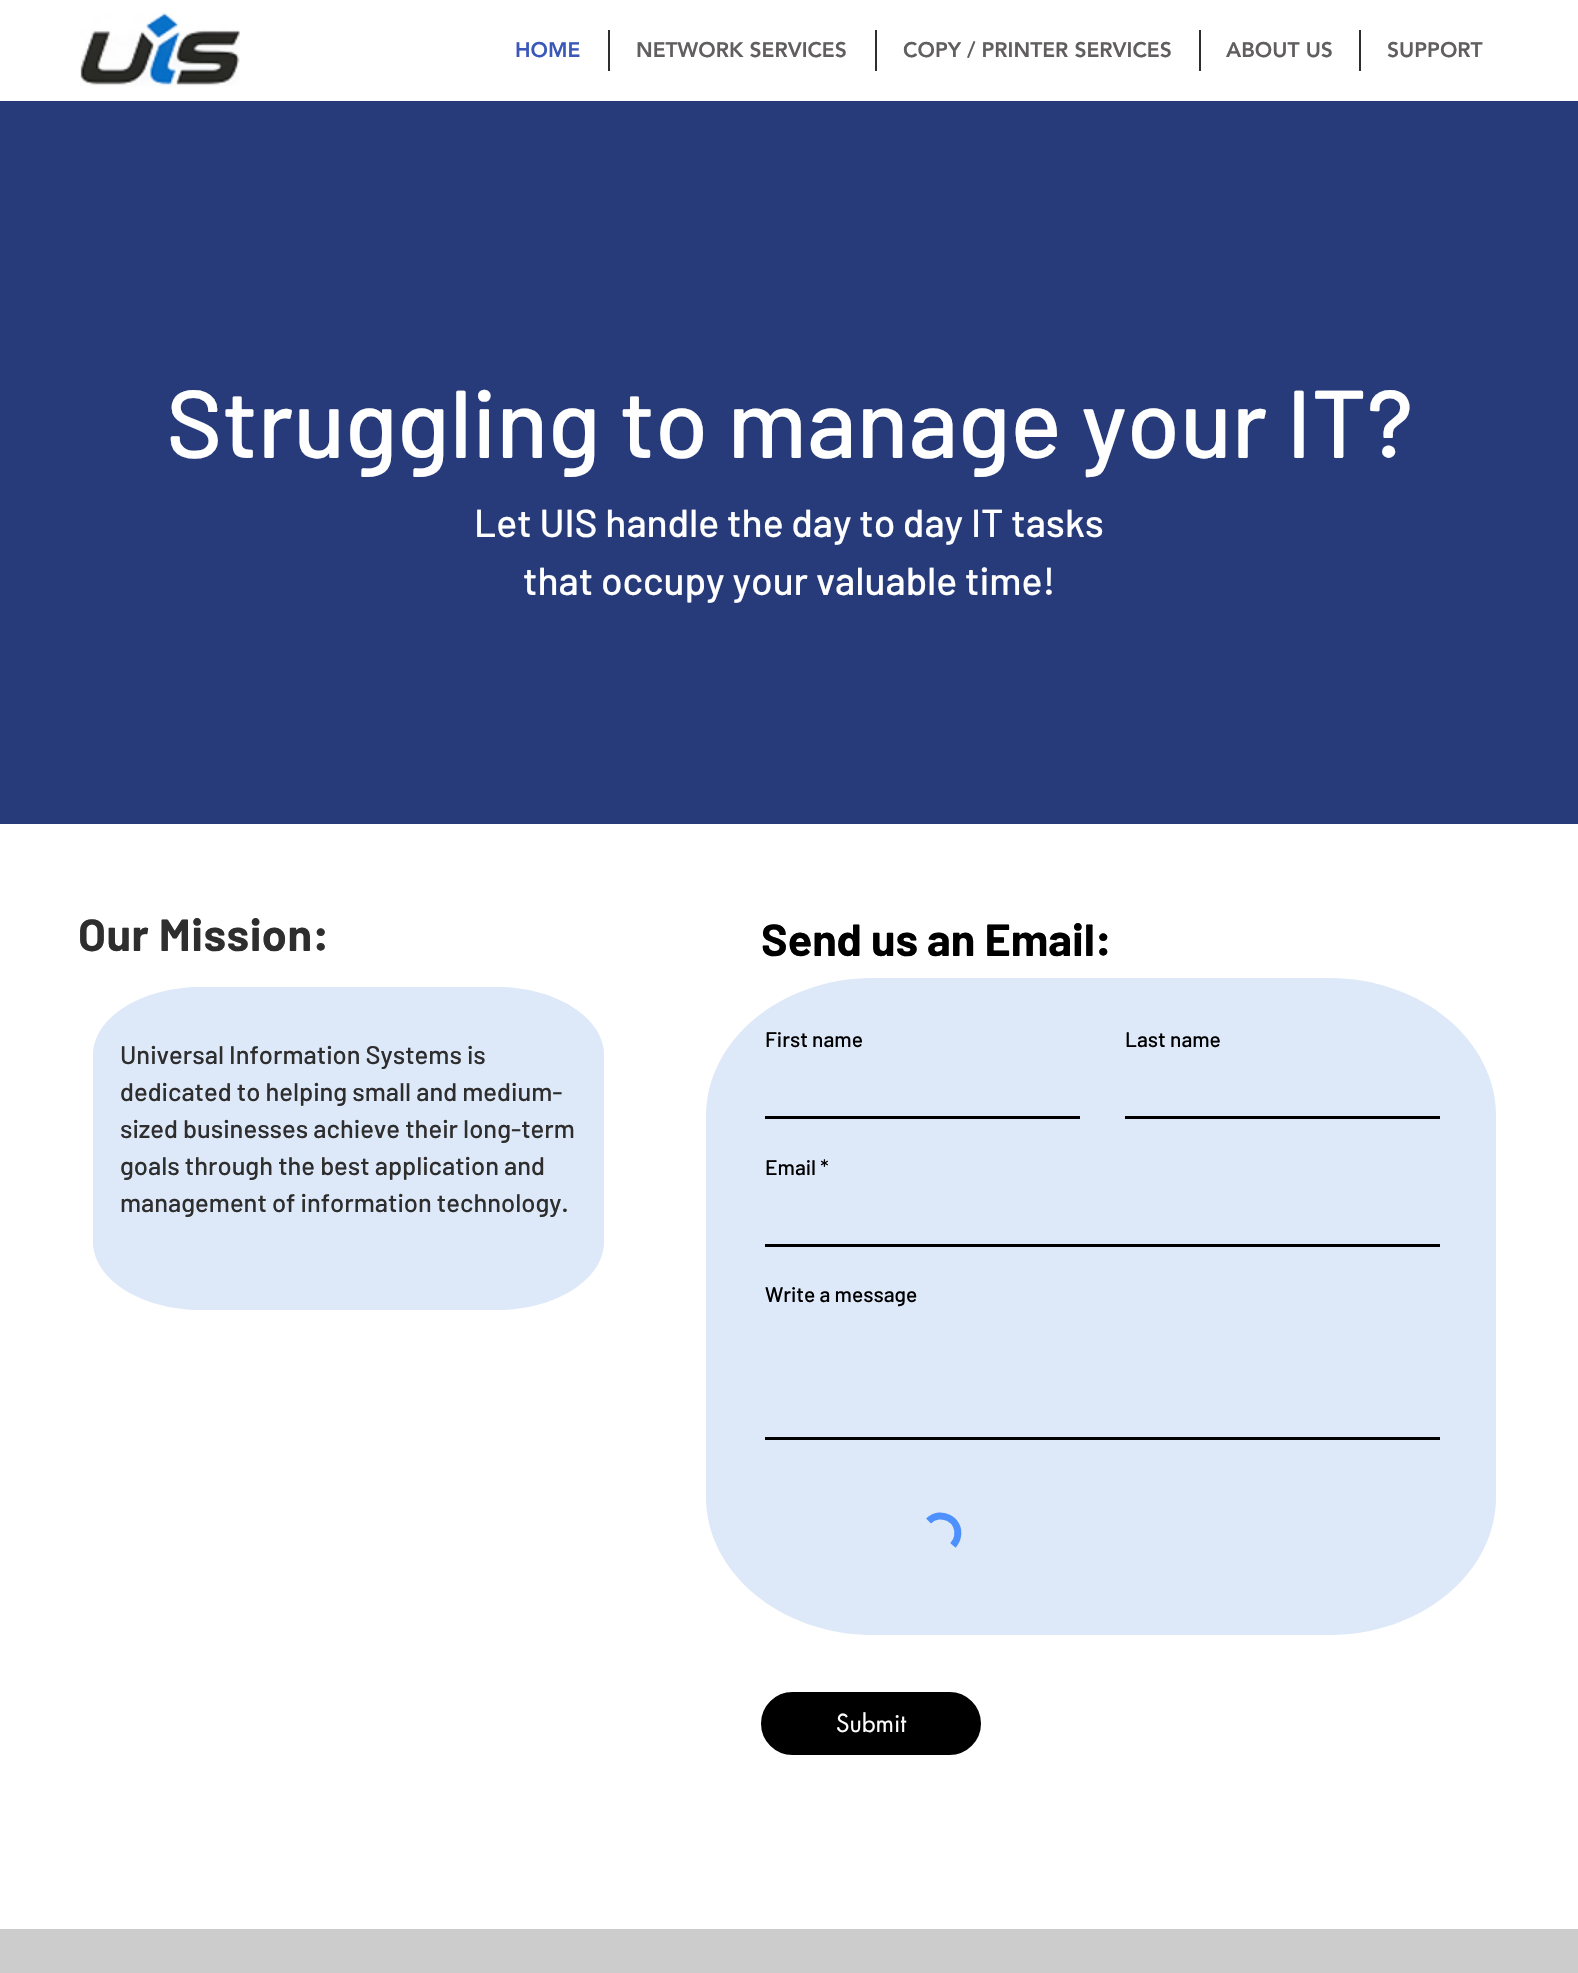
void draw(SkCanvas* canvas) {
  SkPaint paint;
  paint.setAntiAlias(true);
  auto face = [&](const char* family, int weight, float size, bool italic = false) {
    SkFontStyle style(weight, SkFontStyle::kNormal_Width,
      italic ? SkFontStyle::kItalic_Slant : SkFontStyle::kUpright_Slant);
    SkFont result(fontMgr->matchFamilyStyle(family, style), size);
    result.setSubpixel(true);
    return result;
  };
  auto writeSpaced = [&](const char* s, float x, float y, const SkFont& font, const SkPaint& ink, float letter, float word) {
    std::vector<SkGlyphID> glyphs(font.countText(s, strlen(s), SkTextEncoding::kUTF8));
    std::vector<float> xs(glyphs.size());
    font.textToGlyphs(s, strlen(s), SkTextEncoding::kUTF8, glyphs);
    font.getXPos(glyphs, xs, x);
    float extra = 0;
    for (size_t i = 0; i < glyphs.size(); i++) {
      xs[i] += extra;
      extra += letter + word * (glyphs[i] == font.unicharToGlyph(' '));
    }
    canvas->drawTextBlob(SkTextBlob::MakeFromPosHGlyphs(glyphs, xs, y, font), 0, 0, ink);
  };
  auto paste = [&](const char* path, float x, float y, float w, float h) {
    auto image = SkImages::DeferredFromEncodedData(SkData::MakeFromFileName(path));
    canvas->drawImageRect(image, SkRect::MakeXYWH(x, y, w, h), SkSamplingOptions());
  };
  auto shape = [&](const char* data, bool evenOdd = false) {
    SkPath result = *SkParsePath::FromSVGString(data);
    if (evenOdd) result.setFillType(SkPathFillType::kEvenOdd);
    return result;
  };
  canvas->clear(0xffffffff);
  paste("img/1.png", 80, 13, 160, 73);
  {
    const struct { float x, y, w, h; SkColor color; } items[] = {
      {608, 30, 2, 41, 0xff2f2e2e},
      {875, 30, 2, 41, 0xff2f2e2e},
      {1199, 30, 2, 41, 0xff2f2e2e},
      {1359, 30, 2, 41, 0xff2f2e2e},
      {0, 101, 1578, 723, 0xff273b7b},
    };
    for (auto [x, y, w, h, color] : items) {
      paint.setColor(color);
      canvas->drawRect(SkRect::MakeXYWH(x, y, w, h), paint);
    }
  }
  paint.setColor(0xffdde8f8);
  canvas->drawPath(shape("M1329 1635H873C781 1635 706 1573 706 1497V1116C706 1040 781 978 873 978H1329C1421 978 1496 1040 1496 1116V1497C1496 1573 1421 1635 1329 1635Z"), paint);
  {
    const struct { float x, y, w, h; SkColor color; } items[] = {
      {765, 1116, 315, 3, 0xff000000},
      {1125, 1116, 315, 3, 0xff000000},
      {765, 1244, 675, 3, 0xff000000},
      {765, 1437, 675, 3, 0xff000000},
    };
    for (auto [x, y, w, h, color] : items) {
      paint.setColor(color);
      canvas->drawRect(SkRect::MakeXYWH(x, y, w, h), paint);
    }
  }
  paint.setStroke(true);
  paint.setStrokeWidth(6.9f);
  paint.setColor(0xff4d90fe);
  canvas->drawPath(shape("M928.5 1521C940.5 1509 961 1520 957.5 1536.5C957 1540 955 1543 953 1545.5"), paint);
  paint.setStroke(false);
  paint.setColor(0xff000000);
  canvas->drawRoundRect(SkRect::MakeXYWH(762.5f, 1693.5f, 217, 60), 30, 30, paint);
  paint.setStroke(true);
  paint.setStrokeWidth(3);
  canvas->drawRoundRect(SkRect::MakeXYWH(762.5f, 1693.5f, 217, 60), 30, 30, paint);
  paint.setStroke(false);
  paint.setColor(0xffdde8f8);
  canvas->drawPath(shape("M497 1310H201C141 1310 93 1279 93 1242V1055C93 1018 141 987 201 987H497C556 987 604 1018 604 1055V1242C604 1279 556 1310 497 1310Z"), paint);
  paint.setColor(0xffcccccc);
  canvas->drawRect(SkRect::MakeXYWH(0, 1929, 1578, 44), paint);
  auto f0 = face("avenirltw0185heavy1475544", 900, 21);
  paint.setColor(0xff3b58b8);
  canvas->drawString("HOME", 515, 57, f0, paint);
  paint.setColor(0xff605e5e);
  {
    const struct { const char* s; float x, y; } items[] = {
      {"NETWORK SERVICES", 636, 57},
      {"COPY / PRINTER SERVICES", 903, 57},
      {"ABOUT US", 1226, 57},
      {"SUPPORT", 1387, 57},
    };
    for (auto [s, x, y] : items) {
      canvas->drawString(s, x, y, f0, paint);
    }
  }
  auto f1 = face("Barlow", 500, 96);
  paint.setColor(0xffffffff);
  canvas->drawString("Struggling to manage your IT?", 166, 458, f1, paint);
  auto f2 = face("Barlow", 500, 39);
  canvas->drawString("Let UIS handle the day to day IT tasks", 474, 537, f2, paint);
  canvas->drawString("that occupy your valuable time!", 523, 595, f2, paint);
  auto f3 = face("Barlow", 700, 45);
  paint.setColor(0xff2f2e2e);
  writeSpaced("Our Mission:", 78, 951, f3, paint, 0.5f, 0);
  paint.setColor(0xff000000);
  canvas->drawString("Send us an Email:", 761, 956, f3, paint);
  auto f4 = face("Barlow", 500, 21);
  {
    const struct { const char* s; float x, y; } items[] = {
      {"First name", 765, 1047},
      {"Last name", 1125, 1047},
      {"Email *", 765, 1175},
      {"Write a message", 765, 1302},
    };
    for (auto [s, x, y] : items) {
      canvas->drawString(s, x, y, f4, paint);
    }
  }
  auto f5 = face("futura", 400, 24);
  paint.setColor(0xffffffff);
  canvas->drawString("Submit", 836, 1732, f5, paint);
  auto f6 = face("Barlow", 500, 25.5f);
  paint.setColor(0xff2f2e2e);
  {
    const struct { const char* s; float x, y; } items[] = {
      {"Universal Information Systems is", 120, 1064},
      {"dedicated to helping small and medium-", 120, 1101},
      {"sized businesses achieve their long-term", 120, 1138},
      {"goals through the best application and", 120, 1175},
      {"management of information technology.", 120, 1212},
    };
    for (auto [s, x, y] : items) {
      canvas->drawString(s, x, y, f6, paint);
    }
  }
}
